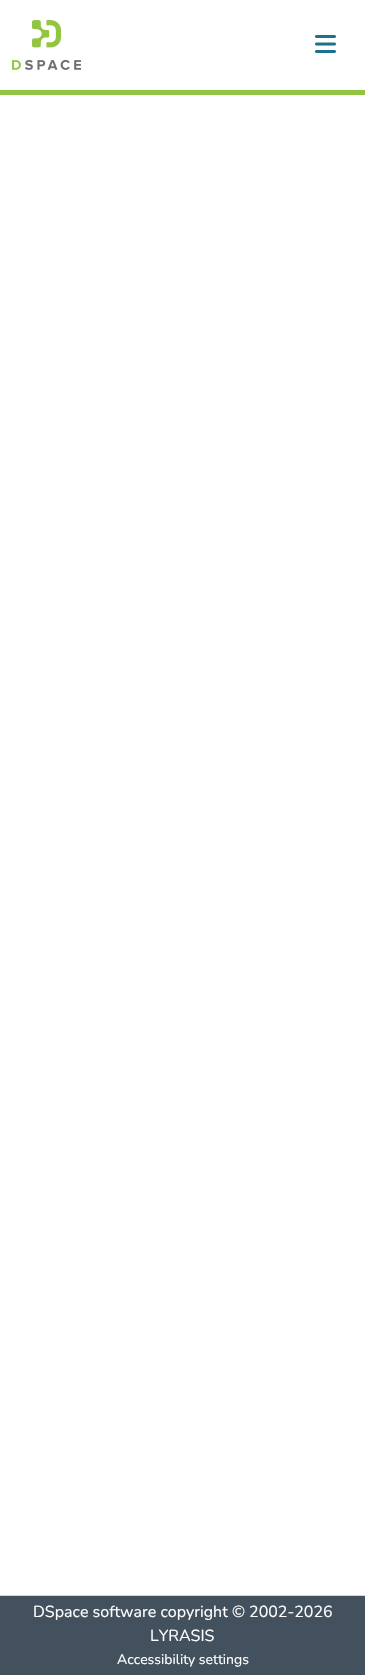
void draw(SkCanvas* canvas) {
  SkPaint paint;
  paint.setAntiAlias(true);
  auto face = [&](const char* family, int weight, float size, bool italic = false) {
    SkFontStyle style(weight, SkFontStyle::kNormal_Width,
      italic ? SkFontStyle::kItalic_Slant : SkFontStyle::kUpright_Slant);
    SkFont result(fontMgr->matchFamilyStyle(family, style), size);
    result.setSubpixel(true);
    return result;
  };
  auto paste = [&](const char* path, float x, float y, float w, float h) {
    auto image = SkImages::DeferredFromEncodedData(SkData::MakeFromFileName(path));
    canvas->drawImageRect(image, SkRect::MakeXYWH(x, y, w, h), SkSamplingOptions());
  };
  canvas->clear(0xffffffff);
  paint.setColor(0xff92c642);
  canvas->drawRect(SkRect::MakeXYWH(0, 90, 365, 5), paint);
  paste("img/1.png", 12, 20, 69, 50);
  paste("img/2.png", 315, 35, 21, 18);
  paint.setColor(0xff43515f);
  canvas->drawRect(SkRect::MakeXYWH(0, 1596, 365, 79), paint);
  paint.setColor(0xffced4da);
  canvas->drawRect(SkRect::MakeXYWH(0, 1595, 365, 1), paint);
  auto f0 = face("Nunito", 400, 16);
  paint.setColor(0xffffffff);
  canvas->drawString("DSpace software copyright © 2002-2026", 33, 1617, f0, paint);
  canvas->drawString("LYRASIS", 150, 1641, f0, paint);
  auto f1 = face("Nunito", 400, 14);
  canvas->drawString("Accessibility settings", 117, 1664, f1, paint);
}
